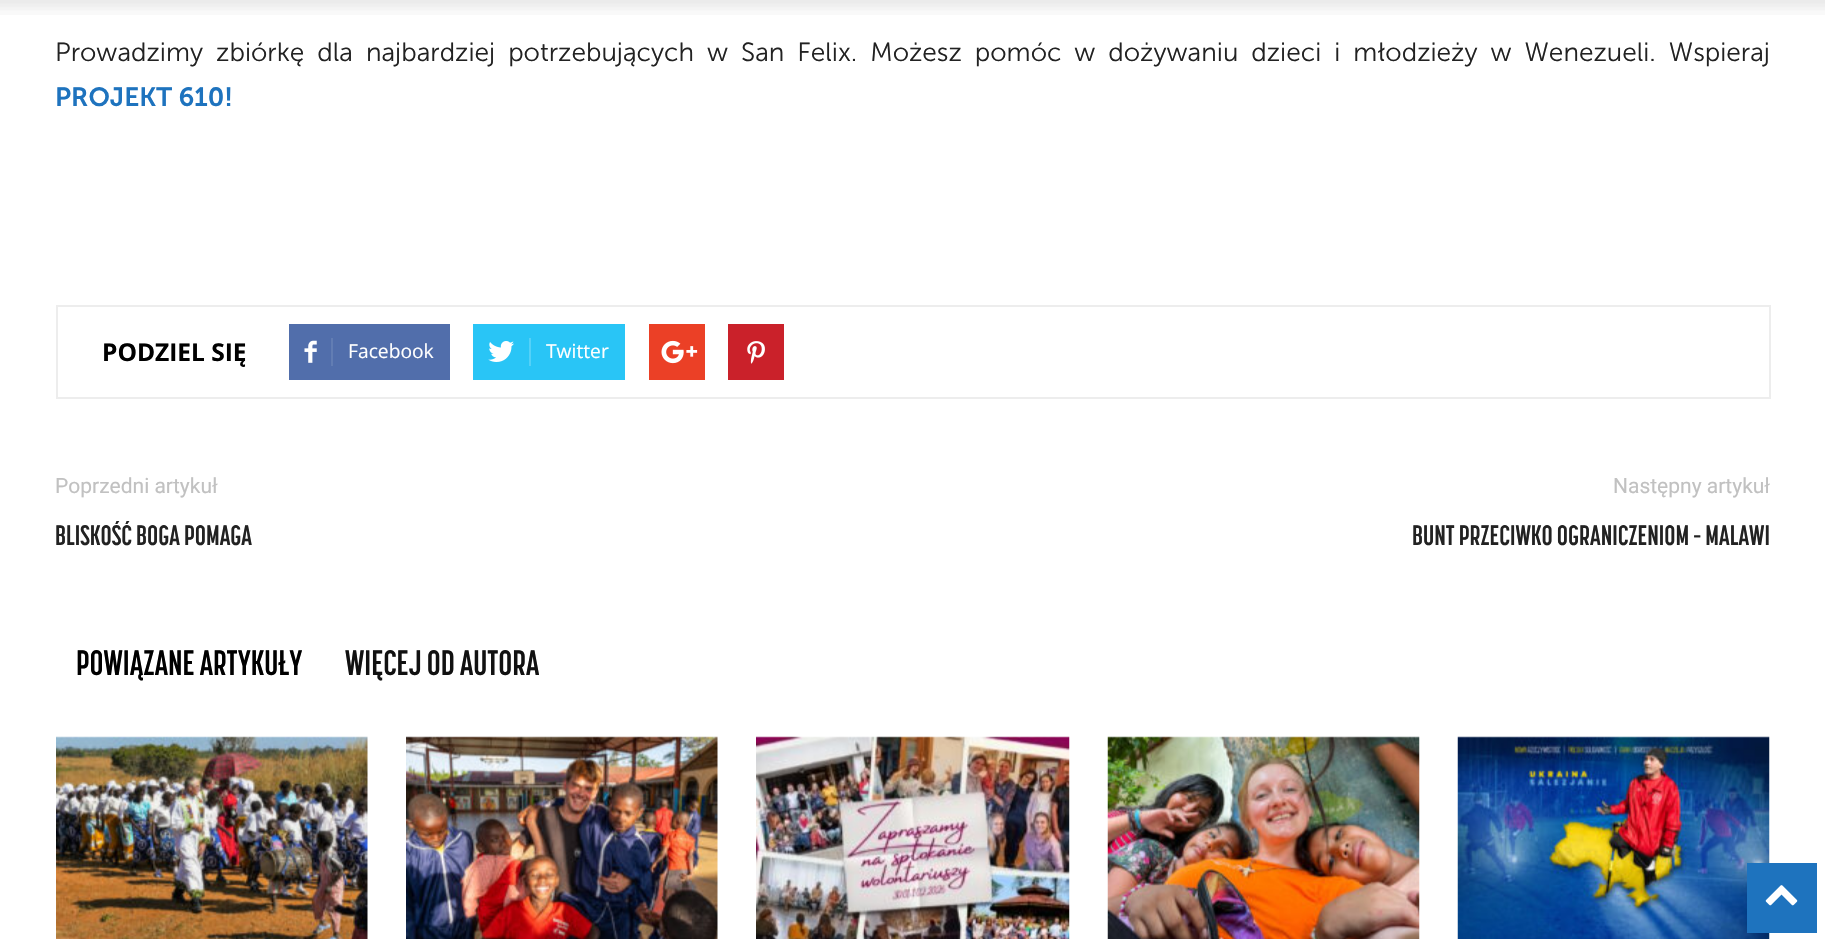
void draw(SkCanvas* canvas) {
  SkPaint paint;
  paint.setAntiAlias(true);
  auto face = [&](const char* family, int weight, float size, bool italic = false) {
    SkFontStyle style(weight, SkFontStyle::kNormal_Width,
      italic ? SkFontStyle::kItalic_Slant : SkFontStyle::kUpright_Slant);
    SkFont result(fontMgr->matchFamilyStyle(family, style), size);
    result.setSubpixel(true);
    return result;
  };
  auto writeSpaced = [&](const char* s, float x, float y, const SkFont& font, const SkPaint& ink, float letter, float word) {
    std::vector<SkGlyphID> glyphs(font.countText(s, strlen(s), SkTextEncoding::kUTF8));
    std::vector<float> xs(glyphs.size());
    font.textToGlyphs(s, strlen(s), SkTextEncoding::kUTF8, glyphs);
    font.getXPos(glyphs, xs, x);
    float extra = 0;
    for (size_t i = 0; i < glyphs.size(); i++) {
      xs[i] += extra;
      extra += letter + word * (glyphs[i] == font.unicharToGlyph(' '));
    }
    canvas->drawTextBlob(SkTextBlob::MakeFromPosHGlyphs(glyphs, xs, y, font), 0, 0, ink);
  };
  auto paste = [&](const char* path, float x, float y, float w, float h) {
    auto image = SkImages::DeferredFromEncodedData(SkData::MakeFromFileName(path));
    canvas->drawImageRect(image, SkRect::MakeXYWH(x, y, w, h), SkSamplingOptions());
  };
  canvas->clear(0xffffffff);
  paste("img/1.png", 0, 0, 1825, 15);
  paint.setStroke(true);
  paint.setStrokeWidth(2);
  paint.setColor(0xffededed);
  canvas->drawRect(SkRect::MakeXYWH(57, 306, 1713, 92), paint);
  paint.setStroke(false);
  paint.setColor(0xff516eab);
  canvas->drawRect(SkRect::MakeXYWH(289, 324, 161, 56), paint);
  paste("img/2.png", 304, 340, 13, 23);
  paint.setColor(0xff627db3);
  canvas->drawRect(SkRect::MakeXYWH(331, 338, 2, 28), paint);
  paint.setColor(0xff29c5f6);
  canvas->drawRect(SkRect::MakeXYWH(473, 324, 152, 56), paint);
  paste("img/3.png", 488, 341, 26, 21);
  paint.setColor(0xff54d1f8);
  canvas->drawRect(SkRect::MakeXYWH(529, 338, 2, 28), paint);
  paint.setColor(0xffeb4026);
  canvas->drawRect(SkRect::MakeXYWH(649, 324, 56, 56), paint);
  paste("img/4.png", 661, 340, 37, 24);
  paint.setColor(0xffca212a);
  canvas->drawRect(SkRect::MakeXYWH(728, 324, 56, 56), paint);
  paste("img/5.png", 747, 341, 18, 23);
  paste("img/6.png", 56, 736, 312, 203);
  paste("img/7.png", 406, 736, 312, 203);
  paste("img/8.png", 756, 736, 314, 203);
  paste("img/9.png", 1107, 736, 313, 203);
  paste("img/10.png", 1457, 736, 313, 203);
  paint.setColor(0xff1e73be);
  canvas->drawRect(SkRect::MakeXYWH(1747, 863, 70, 70), paint);
  paste("img/11.png", 1765, 885, 33, 21);
  auto f0 = face("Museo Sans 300", 300, 26.25f);
  paint.setColor(0xff222222);
  writeSpaced("Prowadzimy zbiórkę dla najbardziej potrzebujących w San Felix. Możesz pomóc w dożywaniu dzieci i młodzieży w Wenezueli. Wspieraj", 55, 61, f0, paint, 0, 5.9f);
  auto f1 = face("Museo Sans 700", 600, 26.25f);
  paint.setColor(0xff1e73be);
  canvas->drawString("PROJEKT 610!", 55, 106, f1, paint);
  auto f2 = face("Open Sans", 700, 24.5f);
  paint.setColor(0xff000000);
  canvas->drawString("PODZIEL SIĘ", 102, 361, f2, paint);
  auto f3 = face("Open Sans", 400, 19.25f);
  paint.setColor(0xffffffff);
  canvas->drawString("Facebook", 348, 358, f3, paint);
  canvas->drawString("Twitter", 546, 358, f3, paint);
  auto f4 = face("Roboto", 400, 21);
  paint.setColor(0xffc1c1c1);
  canvas->drawString("Poprzedni artykuł", 55, 493, f4, paint);
  auto f5 = face("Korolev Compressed", 700, 28);
  paint.setColor(0xff222222);
  canvas->drawString("BLISKOŚĆ BOGA POMAGA", 55, 545, f5, paint);
  paint.setColor(0xffc1c1c1);
  canvas->drawString("Następny artykuł", 1613, 493, f4, paint);
  paint.setColor(0xff222222);
  canvas->drawString("BUNT PRZECIWKO OGRANICZENIOM – MALAWI", 1412, 545, f5, paint);
  auto f6 = face("Korolev Compressed", 700, 35);
  paint.setColor(0xff000000);
  canvas->drawString("POWIĄZANE ARTYKUŁY", 76, 675, f6, paint);
  paint.setColor(0xff111111);
  canvas->drawString("WIĘCEJ OD AUTORA", 345, 675, f6, paint);
}
